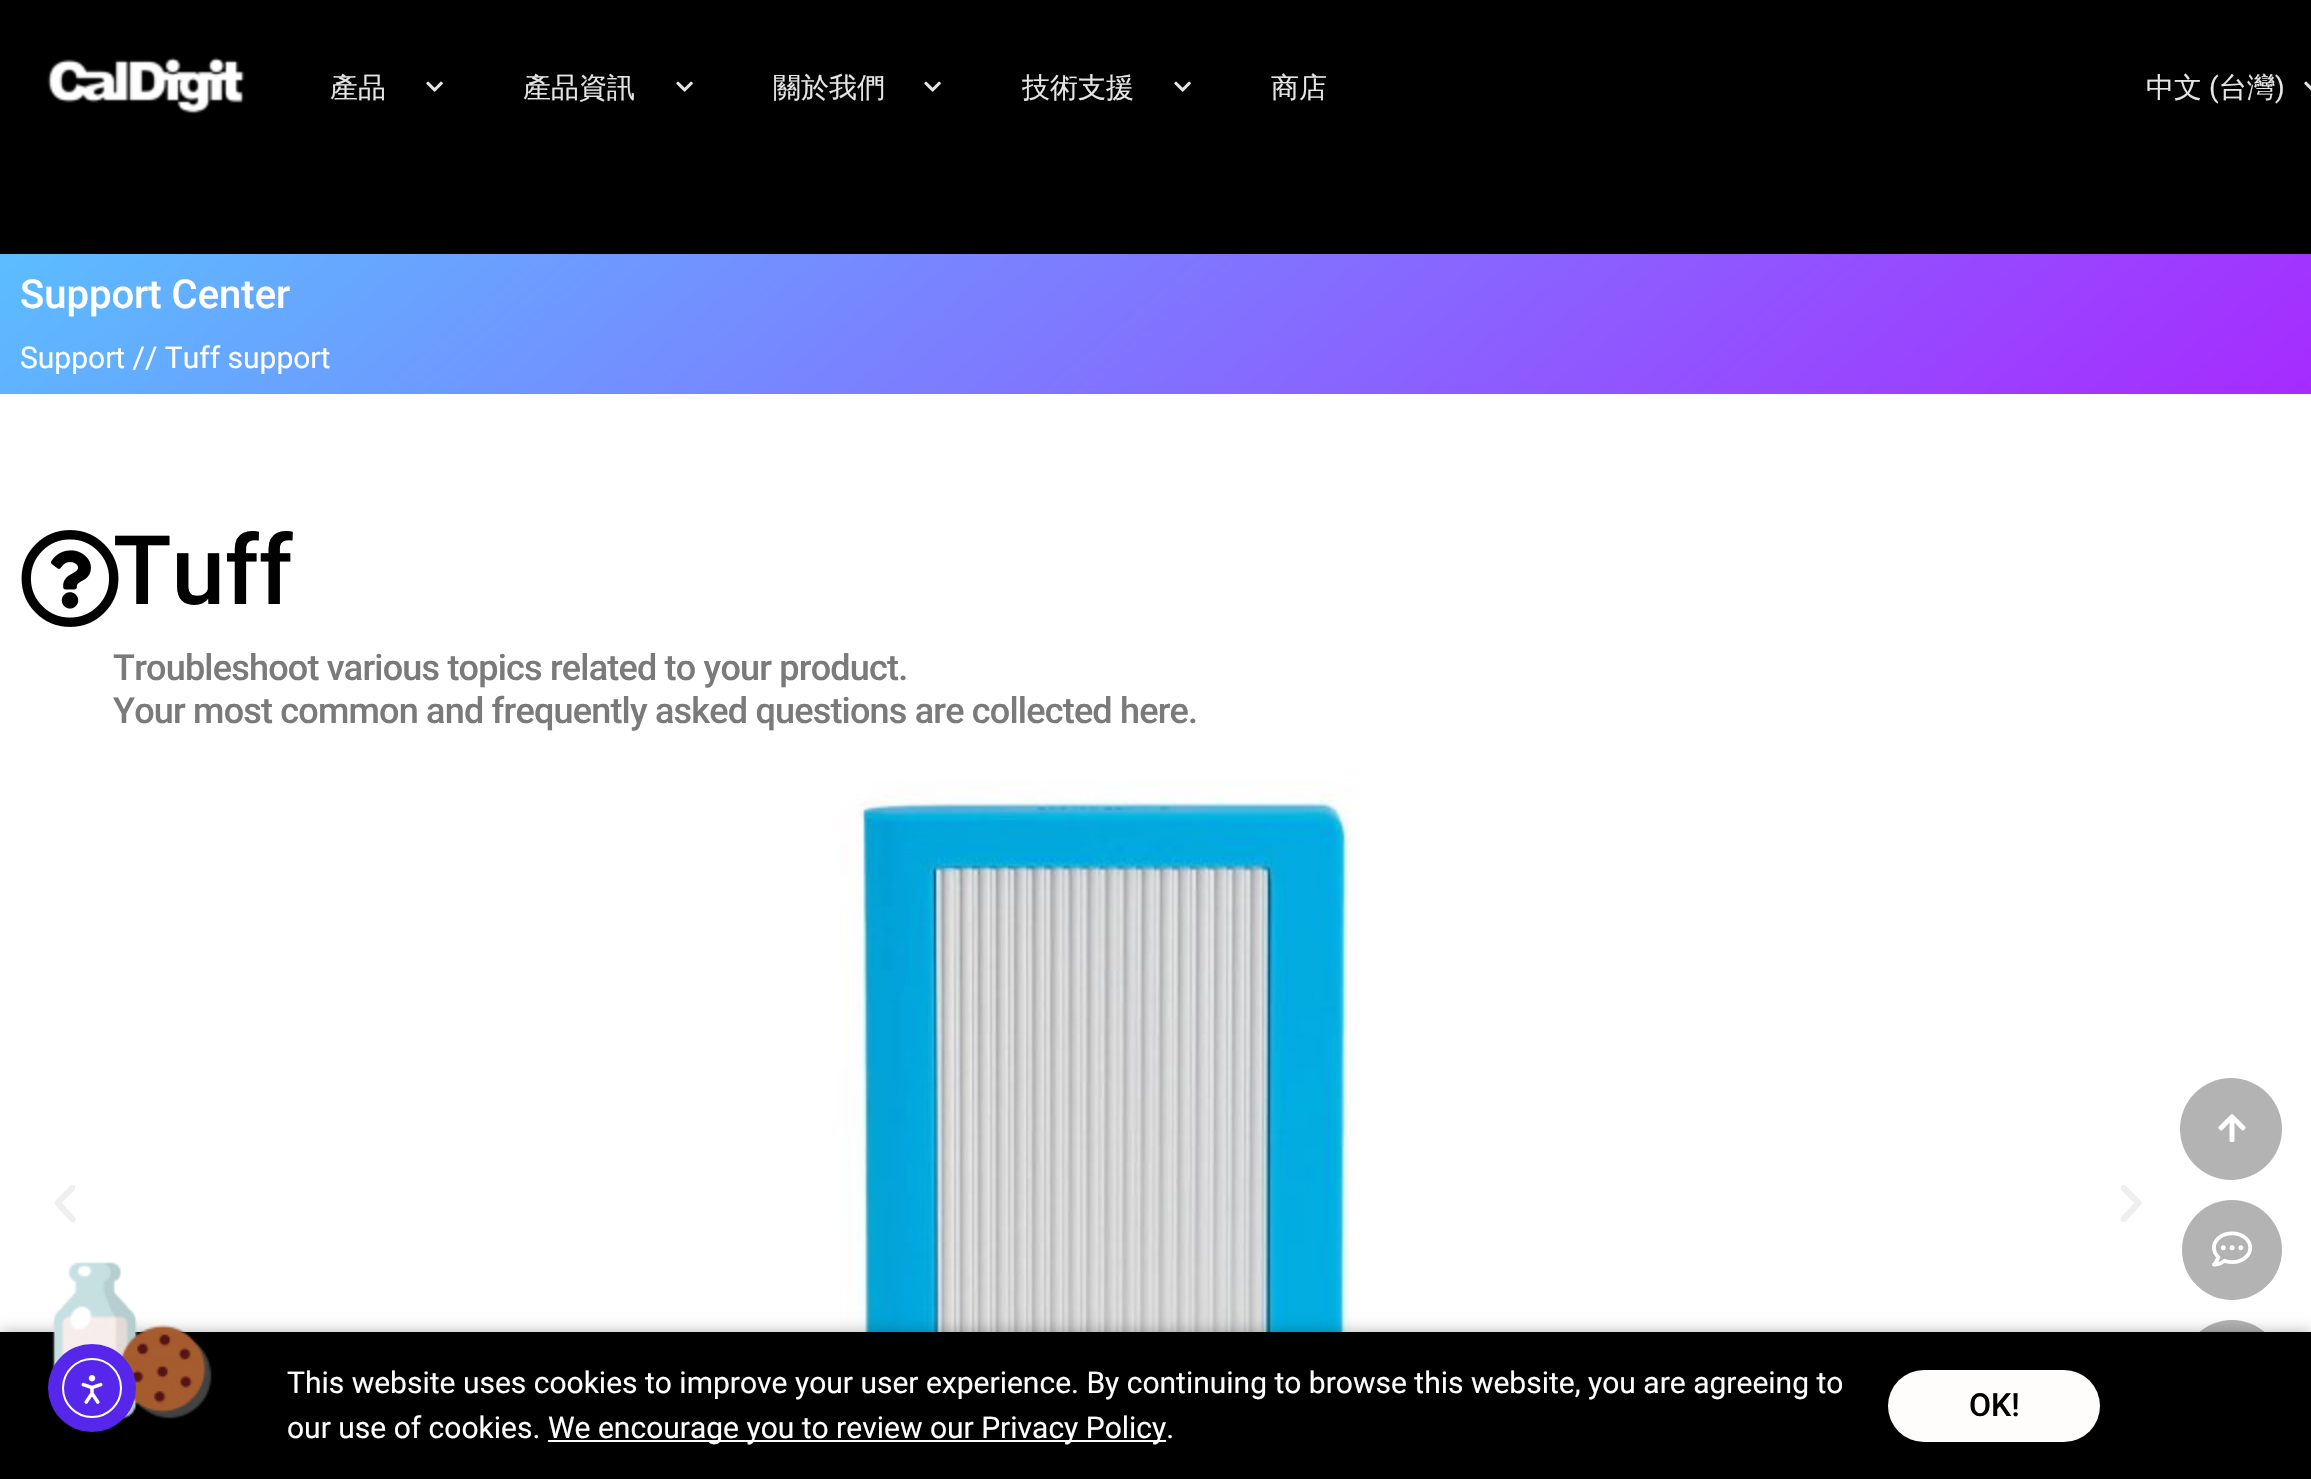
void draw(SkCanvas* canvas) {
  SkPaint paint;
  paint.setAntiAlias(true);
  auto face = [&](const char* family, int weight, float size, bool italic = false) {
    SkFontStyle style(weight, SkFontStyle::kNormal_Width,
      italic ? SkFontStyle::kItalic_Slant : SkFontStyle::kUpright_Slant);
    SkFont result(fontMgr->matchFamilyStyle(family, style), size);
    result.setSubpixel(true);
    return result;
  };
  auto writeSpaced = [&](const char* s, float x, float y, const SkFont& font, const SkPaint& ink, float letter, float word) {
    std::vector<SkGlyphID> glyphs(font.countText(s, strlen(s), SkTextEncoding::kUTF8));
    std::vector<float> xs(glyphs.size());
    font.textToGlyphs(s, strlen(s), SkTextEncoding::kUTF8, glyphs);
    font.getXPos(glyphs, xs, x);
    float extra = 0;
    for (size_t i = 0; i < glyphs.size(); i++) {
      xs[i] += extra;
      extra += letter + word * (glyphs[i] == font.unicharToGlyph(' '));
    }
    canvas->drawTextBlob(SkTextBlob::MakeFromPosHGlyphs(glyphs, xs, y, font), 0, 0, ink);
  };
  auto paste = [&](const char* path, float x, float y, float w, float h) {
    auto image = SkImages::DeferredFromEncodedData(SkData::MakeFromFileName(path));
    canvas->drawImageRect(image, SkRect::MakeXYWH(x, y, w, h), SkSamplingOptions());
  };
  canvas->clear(0xffffffff);
  paint.setColor(0xff000000);
  canvas->drawRect(SkRect::MakeXYWH(0, 0, 2311, 254), paint);
  paste("img/1.png", 47, 57, 198, 57);
  paste("img/2.png", 426, 81, 17, 11);
  paste("img/2.png", 676, 81, 17, 11);
  paste("img/2.png", 924, 81, 17, 11);
  paste("img/2.png", 1174, 81, 17, 11);
  paste("img/3.png", 2304, 81, 7, 10);
  {
    const SkColor colors[] = {0xff5bbdff, 0xffa62bff};
    const float stops[] = {0, 1};
    const SkPoint ends[] = {{644, -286}, {1668, 934}};
    paint.setShader(SkGradientShader::MakeLinear(ends, colors, stops, 2, SkTileMode::kClamp));
    paint.setAlpha(255);
  }
  canvas->drawRect(SkRect::MakeXYWH(0, 254, 2311, 140), paint);
  paste("img/4.png", 21, 530, 98, 97);
  paste("img/5.png", 54, 1185, 22, 37);
  paste("img/6.png", 840, 778, 513, 554);
  paste("img/7.png", 2120, 1185, 22, 37);
  paint.setShader(nullptr);
  paint.setColor(0xffb3b3b3);
  canvas->drawCircle(2231, 1129, 51, paint);
  paste("img/8.png", 2218, 1114, 28, 28);
  canvas->drawCircle(2232, 1250, 50, paint);
  paste("img/9.png", 2212, 1231, 41, 36);
  canvas->drawCircle(2232, 1370, 50, paint);
  paint.setColor(0x4d000000);
  paint.setMaskFilter(SkMaskFilter::MakeBlur(kNormal_SkBlurStyle, 7));
  canvas->drawRect(SkRect::MakeXYWH(0, 1332, 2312, 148), paint);
  paint.setMaskFilter(nullptr);
  paint.setColor(0xff000000);
  canvas->drawRect(SkRect::MakeXYWH(0, 1332, 2311, 147), paint);
  paste("img/11.png", 52, 1262, 160, 157);
  paint.setColor(0xff5726eb);
  canvas->drawCircle(92, 1388, 44, paint);
  paint.setStroke(true);
  paint.setStrokeWidth(2);
  paint.setColor(0xffffffff);
  canvas->drawCircle(92, 1388, 29, paint);
  paste("img/10.png", 81, 1375, 22, 29);
  paint.setStroke(false);
  canvas->drawRect(SkRect::MakeXYWH(548, 1440, 618, 2), paint);
  paint.setColor(0xfffffdfc);
  canvas->drawRoundRect(SkRect::MakeXYWH(1888, 1370, 212, 72), 36, 36, paint);
  auto f0 = face("WenQuanYi Zen Hei", 500, 28);
  paint.setColor(0xffe5e5e5);
  {
    const struct { const char* s; float x, y; } items[] = {
      {"產品", 330, 97},
      {"產品資訊", 523, 97},
      {"關於我們", 773, 97},
      {"技術支援", 1022, 97},
      {"商店", 1271, 97},
      {"中文", 2146, 97},
    };
    for (auto [s, x, y] : items) {
      canvas->drawString(s, x, y, f0, paint);
    }
  }
  auto f1 = face("Roboto", 400, 28);
  canvas->drawString("(", 2209, 97, f1, paint);
  canvas->drawString("台灣", 2219, 97, f0, paint);
  canvas->drawString(")", 2275, 97, f1, paint);
  auto f2 = face("Roboto", 500, 40);
  paint.setColor(0xffffffff);
  canvas->drawString("Support Center", 20, 308, f2, paint);
  auto f3 = face("Roboto", 400, 30);
  canvas->drawString("Support // Tuff support", 20, 368, f3, paint);
  auto f4 = face("Roboto", 500, 96);
  paint.setColor(0xff000000);
  canvas->drawString("Tuff", 113, 604, f4, paint);
  auto f5 = face("Roboto", 500, 36);
  paint.setColor(0xff7a7a7a);
  writeSpaced("Troubleshoot various topics related to your product.", 113, 680, f5, paint, -0.8f, 0);
  writeSpaced("Your most common and frequently asked questions are collected here.", 113, 723, f5, paint, -0.8f, 0);
  paint.setColor(0xffffffff);
  {
    const struct { const char* s; float x, y; } items[] = {
      {"This website uses cookies to improve your user experience. By continuing to browse this website, you are agreeing to", 287, 1393},
      {"our use of cookies.", 287, 1438},
      {"We encourage you to review our Privacy Policy.", 548, 1438},
    };
    for (auto [s, x, y] : items) {
      canvas->drawString(s, x, y, f3, paint);
    }
  }
  auto f6 = face("Roboto", 500, 32);
  paint.setColor(0xff000000);
  canvas->drawString("OK!", 1969, 1416, f6, paint);
}
